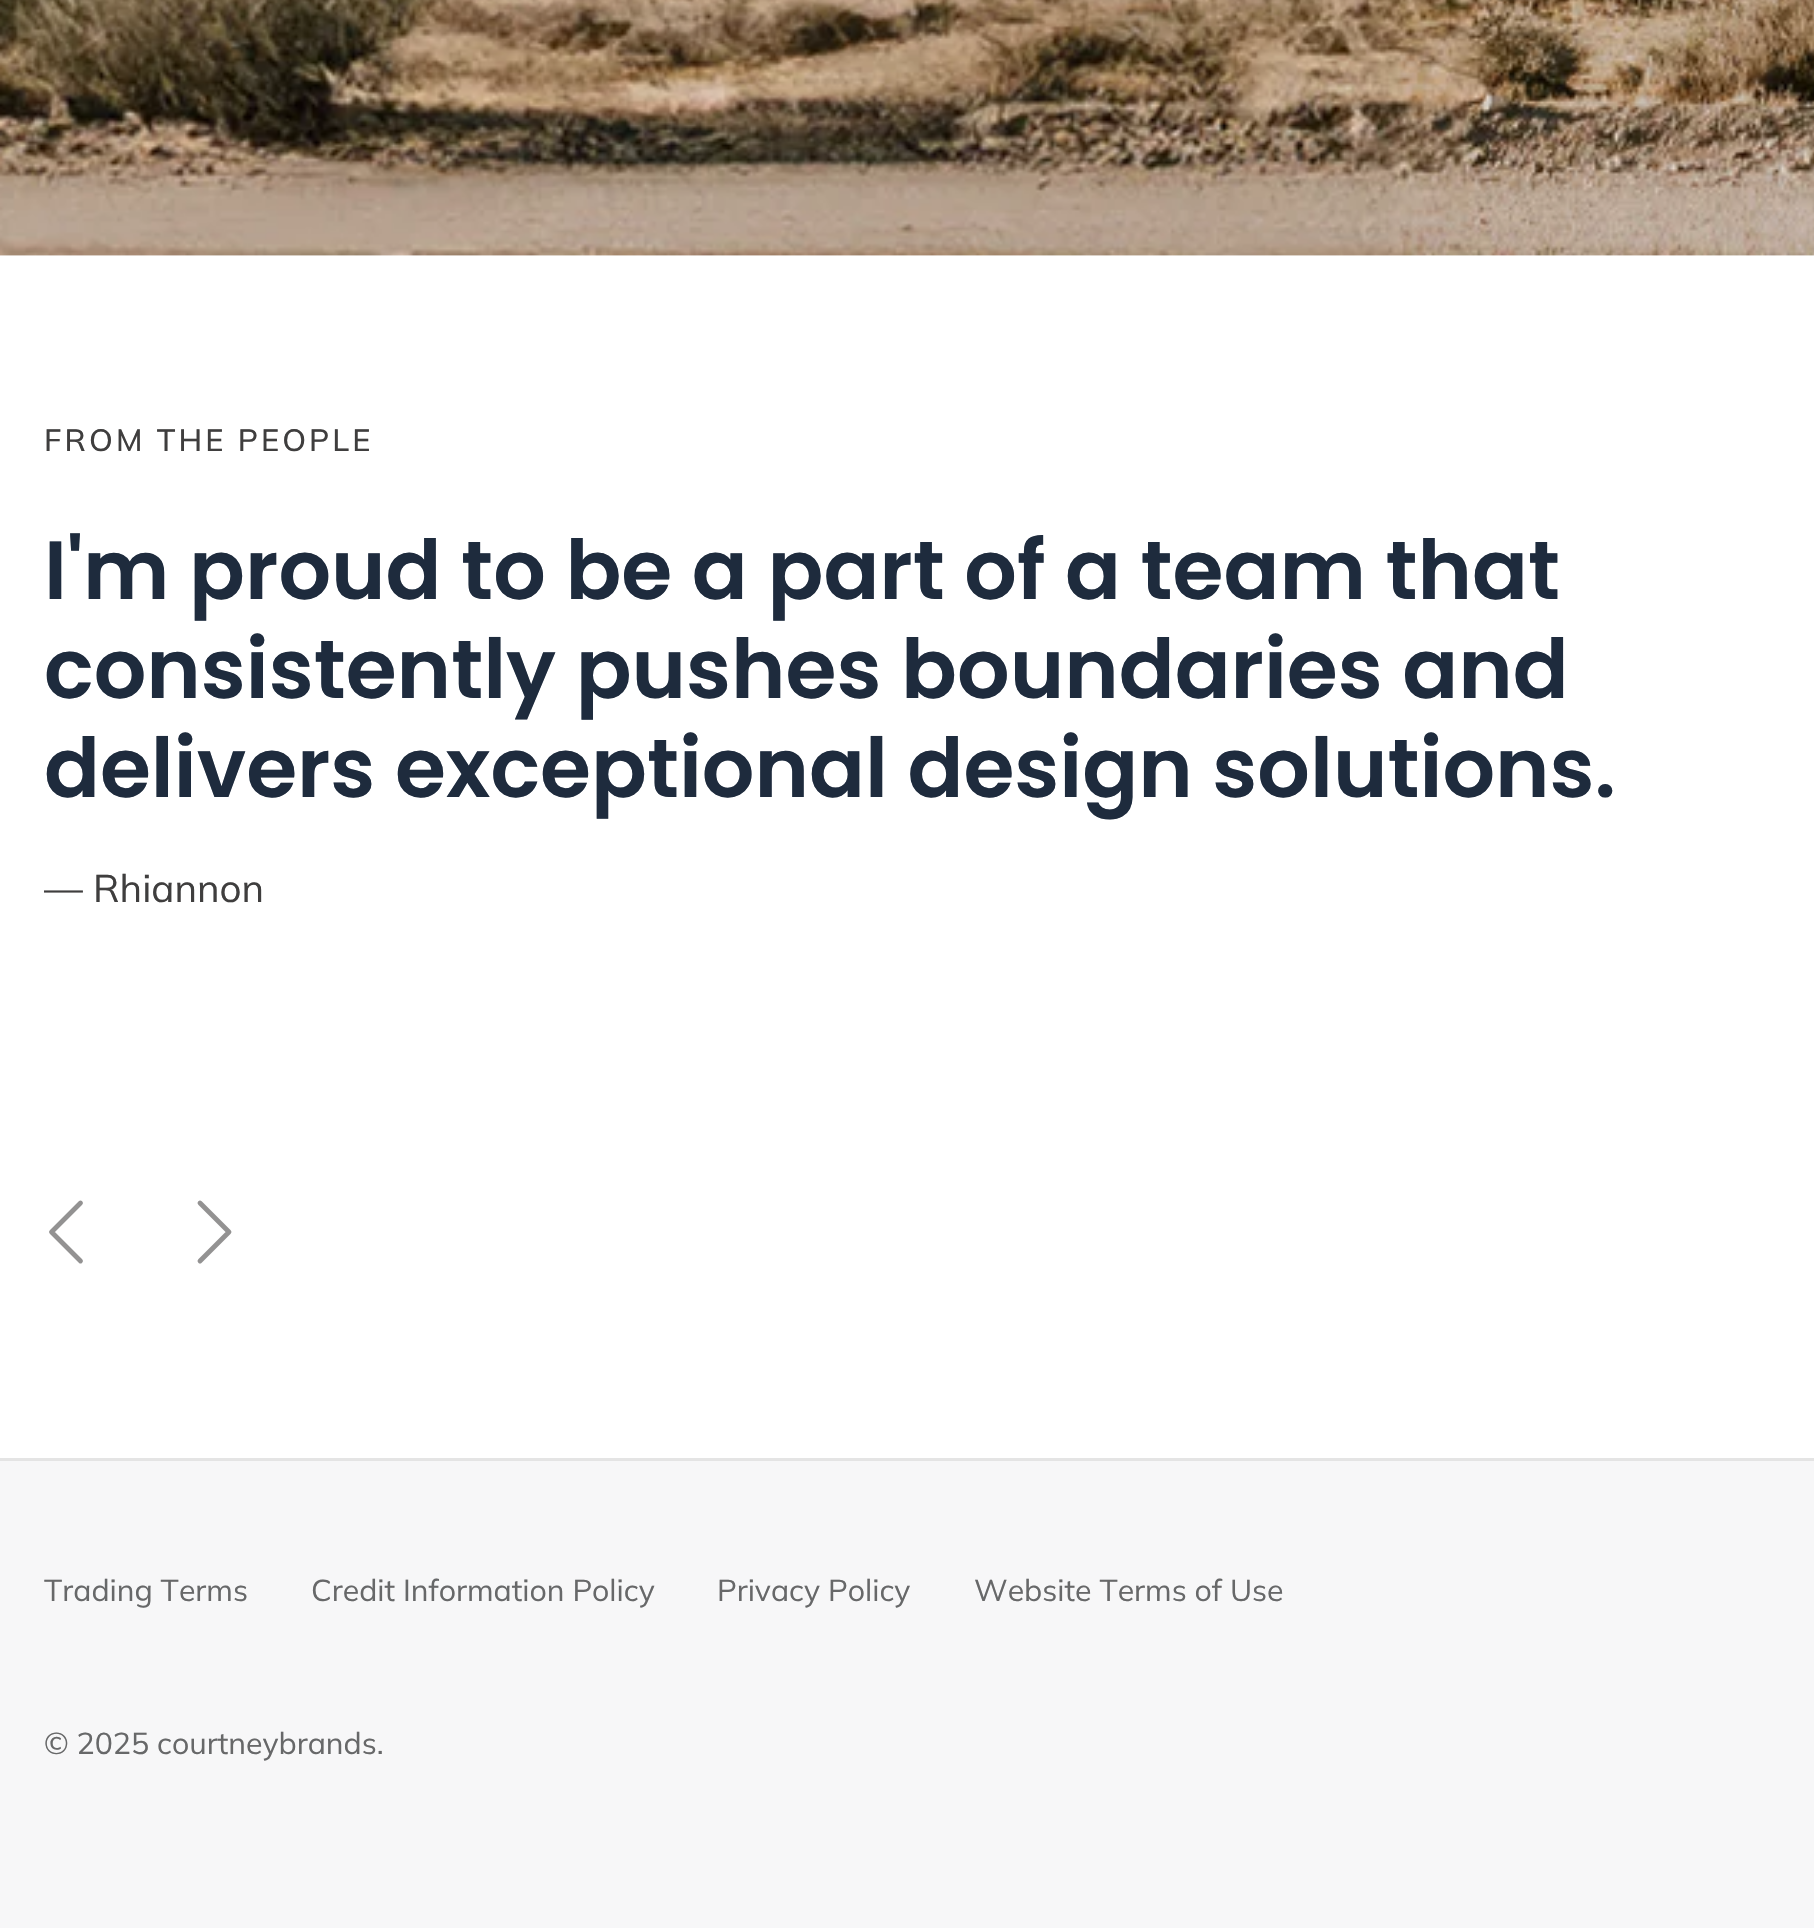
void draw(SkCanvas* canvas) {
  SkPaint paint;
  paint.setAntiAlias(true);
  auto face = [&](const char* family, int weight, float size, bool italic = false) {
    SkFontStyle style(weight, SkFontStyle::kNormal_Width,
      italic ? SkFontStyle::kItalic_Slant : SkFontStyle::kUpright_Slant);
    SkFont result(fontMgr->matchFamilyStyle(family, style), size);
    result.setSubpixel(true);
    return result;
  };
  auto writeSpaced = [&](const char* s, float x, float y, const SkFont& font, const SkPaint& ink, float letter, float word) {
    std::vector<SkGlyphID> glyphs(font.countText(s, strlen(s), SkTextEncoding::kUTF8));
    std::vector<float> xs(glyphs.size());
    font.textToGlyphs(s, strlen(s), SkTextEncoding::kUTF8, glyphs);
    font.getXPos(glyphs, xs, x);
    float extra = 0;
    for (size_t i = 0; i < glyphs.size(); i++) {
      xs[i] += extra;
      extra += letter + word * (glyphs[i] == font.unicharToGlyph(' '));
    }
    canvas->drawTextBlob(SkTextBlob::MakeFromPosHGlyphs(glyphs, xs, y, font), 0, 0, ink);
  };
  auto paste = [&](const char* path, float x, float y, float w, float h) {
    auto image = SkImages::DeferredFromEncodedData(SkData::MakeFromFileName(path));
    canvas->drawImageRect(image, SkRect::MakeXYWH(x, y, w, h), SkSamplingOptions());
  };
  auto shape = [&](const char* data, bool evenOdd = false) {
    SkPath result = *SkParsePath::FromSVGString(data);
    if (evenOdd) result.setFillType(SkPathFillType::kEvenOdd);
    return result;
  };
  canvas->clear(0xffffffff);
  paste("img/1.png", 0, 0, 1814, 256);
  paint.setStroke(true);
  paint.setStrokeWidth(4.8f);
  paint.setStrokeCap(SkPaint::kRound_Cap);
  paint.setStrokeJoin(SkPaint::kRound_Join);
  paint.setColor(0xff939292);
  canvas->drawPath(shape("M80.5 1261L51.5 1232L80.5 1203"), paint);
  canvas->drawPath(shape("M200 1261L229 1232L200 1203"), paint);
  paint.setStroke(false);
  paint.setColor(0xfff7f7f8);
  canvas->drawRect(SkRect::MakeXYWH(0, 1461, 1814, 467), paint);
  paint.setColor(0xffe4e4e4);
  canvas->drawRect(SkRect::MakeXYWH(0, 1458, 1814, 3), paint);
  auto f0 = face("Muli", 500, 30.75f);
  paint.setColor(0xff3f3e3e);
  writeSpaced("FROM THE PEOPLE", 44, 451, f0, paint, 3.1f, 0);
  auto f1 = face("Poppins", 600, 82.5f);
  paint.setColor(0xff1e2b3d);
  {
    const struct { const char* s; float x, y; } items[] = {
      {"I'm proud to be a part of a team that", 44, 599},
      {"consistently pushes boundaries and", 44, 698},
      {"delivers exceptional design solutions.", 44, 797},
    };
    for (auto [s, x, y] : items) {
      canvas->drawString(s, x, y, f1, paint);
    }
  }
  auto f2 = face("Muli", 400, 38.5f);
  paint.setColor(0xff3f3e3e);
  canvas->drawString("— Rhiannon", 44, 902, f2, paint);
  auto f3 = face("Muli", 400, 30.25f);
  paint.setColor(0xff676869);
  {
    const struct { const char* s; float x, y; } items[] = {
      {"Trading Terms", 44, 1601},
      {"Credit Information Policy", 311, 1601},
      {"Privacy Policy", 717, 1601},
      {"Website Terms of Use", 974, 1601},
      {"© 2025 courtneybrands.", 44, 1754},
    };
    for (auto [s, x, y] : items) {
      canvas->drawString(s, x, y, f3, paint);
    }
  }
}
